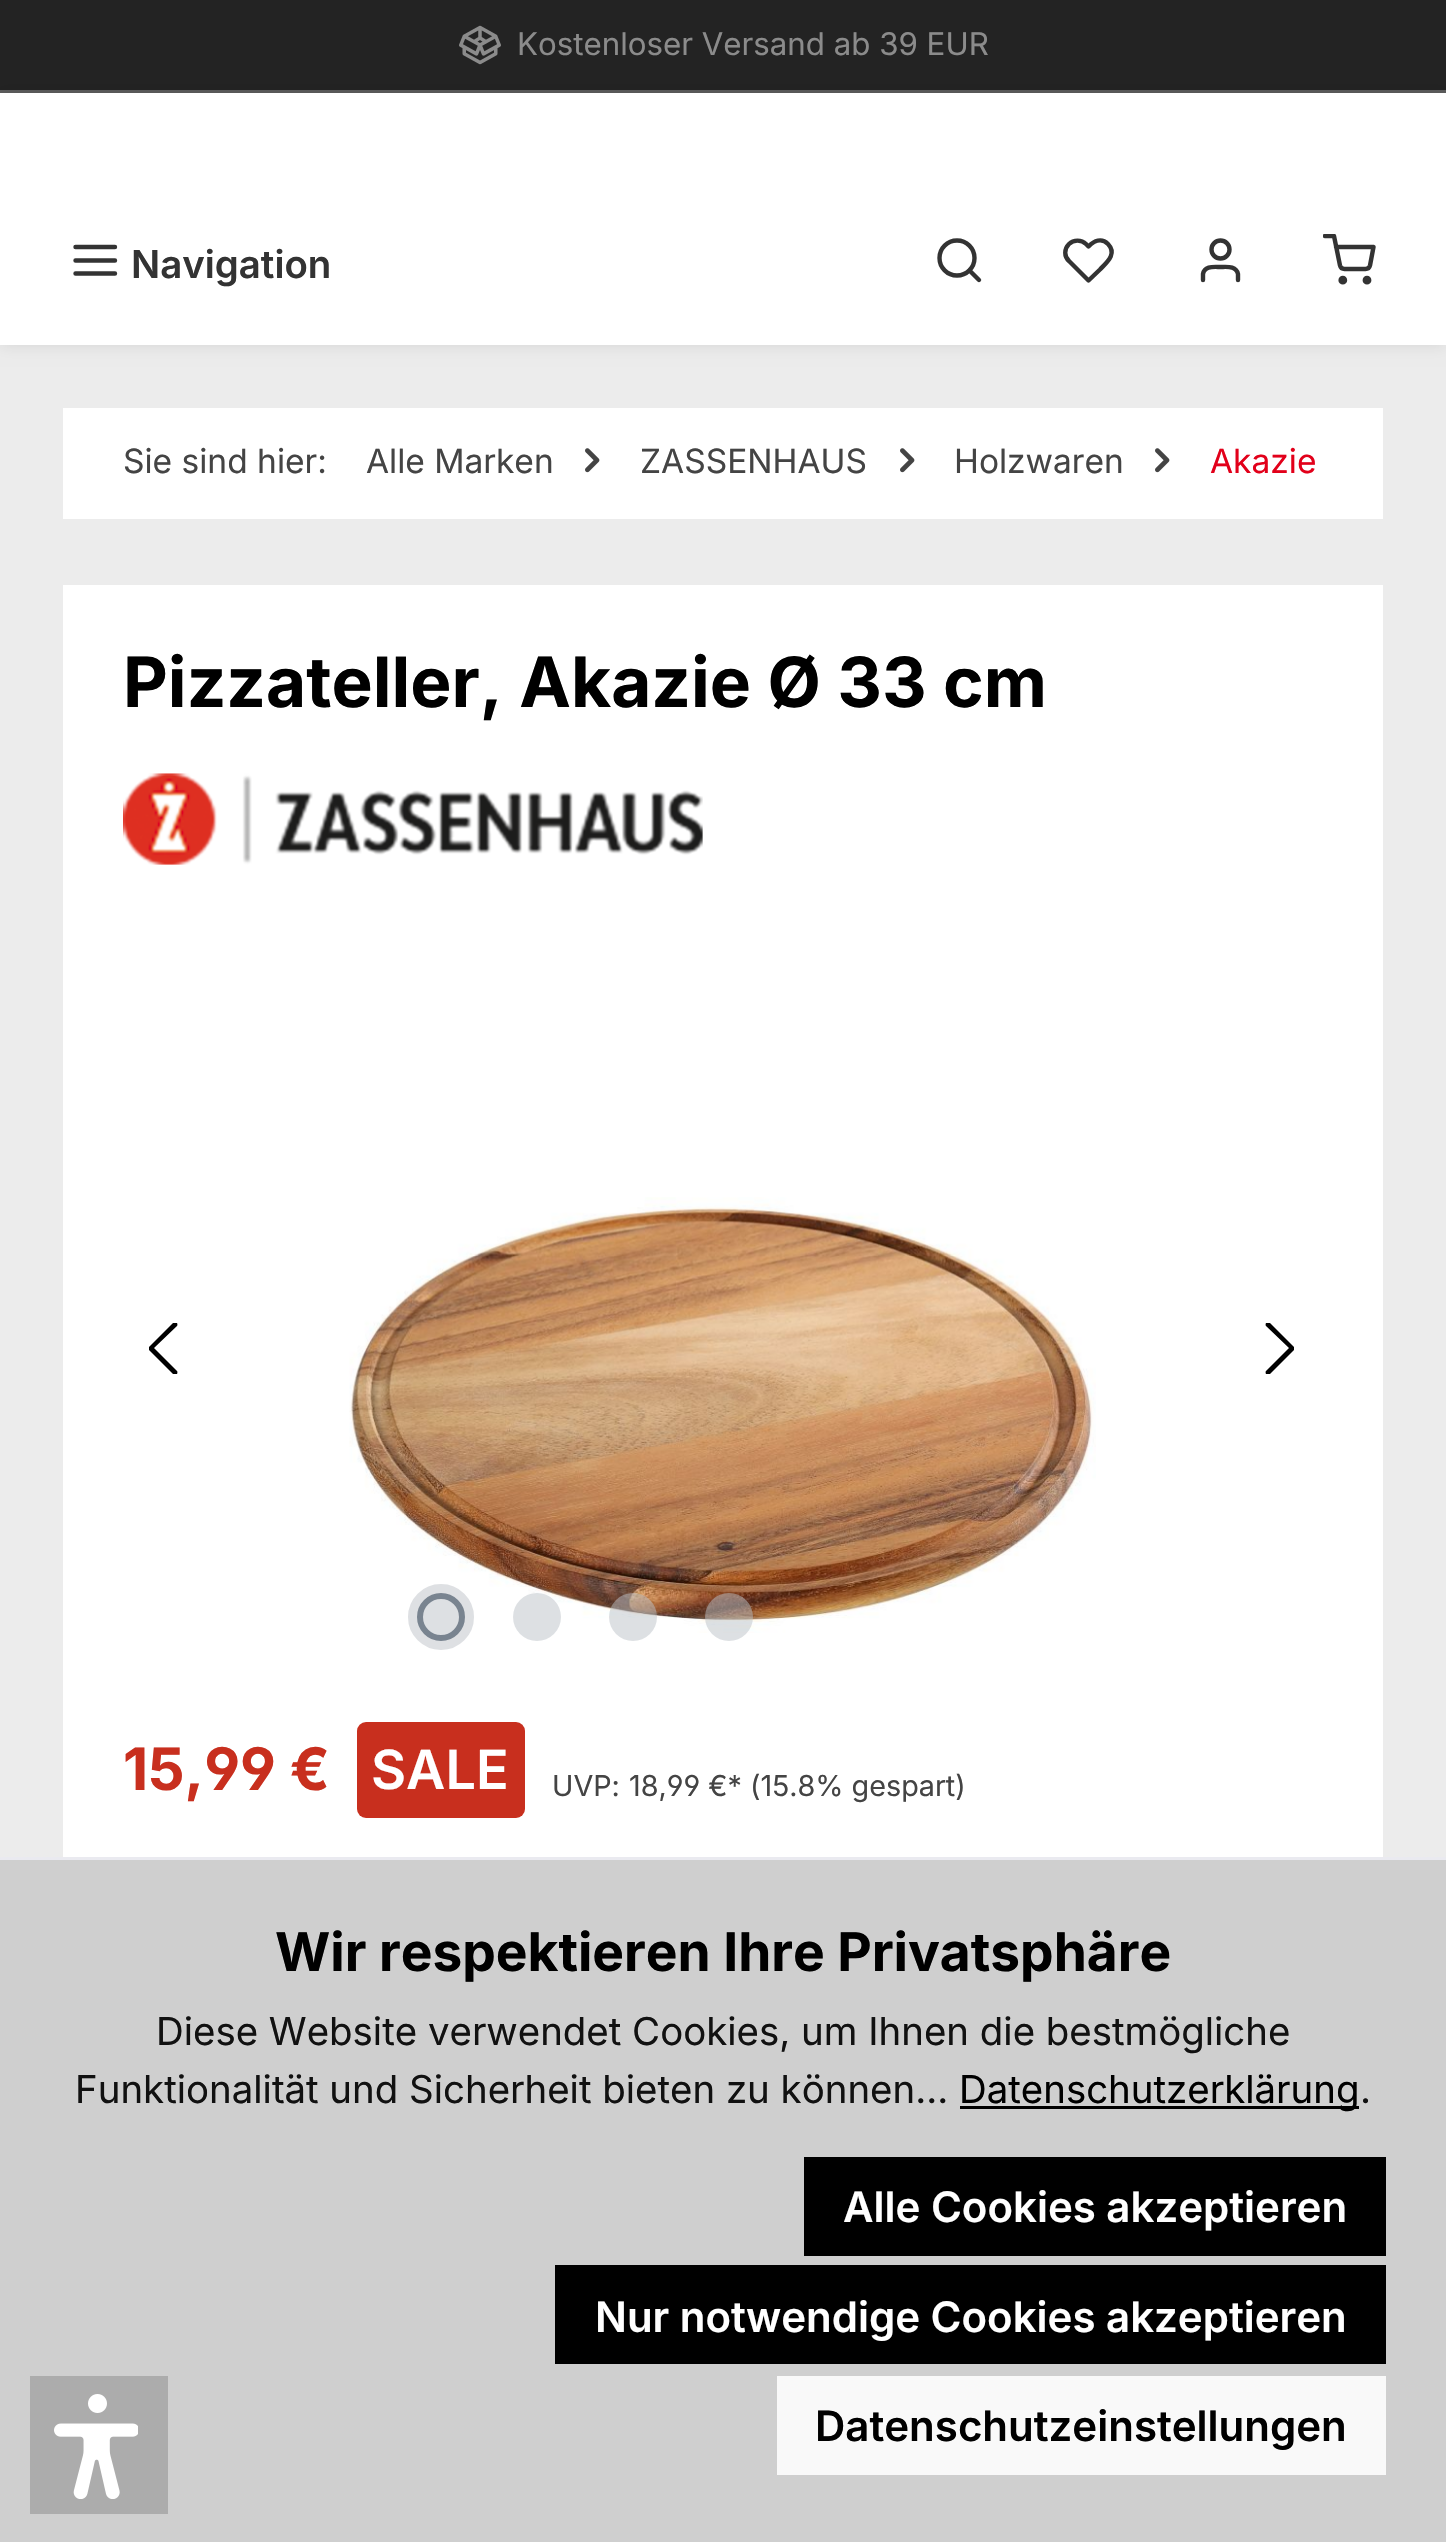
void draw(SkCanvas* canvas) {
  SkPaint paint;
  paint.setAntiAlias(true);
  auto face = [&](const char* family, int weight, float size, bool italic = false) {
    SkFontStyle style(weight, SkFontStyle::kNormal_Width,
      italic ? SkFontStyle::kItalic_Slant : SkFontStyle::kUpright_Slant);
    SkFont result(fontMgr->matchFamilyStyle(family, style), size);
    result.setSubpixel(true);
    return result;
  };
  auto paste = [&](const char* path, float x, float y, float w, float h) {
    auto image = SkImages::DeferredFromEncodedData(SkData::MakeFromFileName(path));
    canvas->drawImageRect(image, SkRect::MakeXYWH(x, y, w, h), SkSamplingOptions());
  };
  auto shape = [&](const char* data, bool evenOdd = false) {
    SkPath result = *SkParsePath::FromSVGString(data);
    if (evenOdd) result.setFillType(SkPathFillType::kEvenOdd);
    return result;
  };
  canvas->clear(0xffececec);
  paint.setColor(0xff232323);
  canvas->drawRect(SkRect::MakeXYWH(0, 0, 1446, 90), paint);
  paint.setColor(0xff5d5d5d);
  canvas->drawRect(SkRect::MakeXYWH(0, 90, 1446, 3), paint);
  paste("img/1.png", 459, 25, 42, 40);
  paint.setColor(0x1a000000);
  paint.setMaskFilter(SkMaskFilter::MakeBlur(kNormal_SkBlurStyle, 7.5f));
  canvas->drawRect(SkRect::MakeXYWH(0, 93, 1446, 252), paint);
  paint.setMaskFilter(nullptr);
  paint.setColor(0xffffffff);
  canvas->drawRect(SkRect::MakeXYWH(0, 93, 1446, 252), paint);
  paint.setStroke(true);
  paint.setStrokeWidth(4.4f);
  paint.setStrokeCap(SkPaint::kRound_Cap);
  paint.setStrokeJoin(SkPaint::kRound_Join);
  paint.setColor(0xff333333);
  canvas->drawPath(shape("M75.5 260.5H115M75.5 247H115M75.5 273.5H115"), paint);
  paint.setStrokeCap(SkPaint::kButt_Cap);
  paint.setStrokeJoin(SkPaint::kMiter_Join);
  canvas->drawCircle(957, 258, 17.5f, paint);
  paint.setStrokeCap(SkPaint::kRound_Cap);
  paint.setStrokeJoin(SkPaint::kRound_Join);
  canvas->drawPath(shape("M979 280L969.5 270.5"), paint);
  canvas->drawPath(shape("M1108 244C1101.5 237.5 1094 241 1088.5 246.5L1086 244C1081.5 239.5 1073.5 239.5 1069 244C1064 249 1064 256.5 1069 261L1088.5 280.5L1100 269.5C1106.5 262.5 1117.5 254 1108 244Z"), paint);
  canvas->drawPath(shape("M1238 280V274C1236 265.5 1227 267 1220.5 267C1214 267 1204.5 265.5 1203 274V280"), paint);
  paint.setStrokeCap(SkPaint::kButt_Cap);
  paint.setStrokeJoin(SkPaint::kMiter_Join);
  canvas->drawCircle(1220.5f, 249.5f, 9, paint);
  canvas->drawCircle(1342.8f, 280.2f, 2.2f, paint);
  canvas->drawCircle(1367, 280.2f, 2.2f, paint);
  canvas->save();
  canvas->clipRect(SkRect::MakeXYWH(1323, 234, 54, 54));
  paint.setStrokeCap(SkPaint::kRound_Cap);
  paint.setStrokeJoin(SkPaint::kRound_Join);
  canvas->drawPath(shape("M1325 236H1334L1340 265.5C1340.5 267.5 1342 269 1344.5 269H1365.5C1368 269 1369.5 267.5 1370 265.5L1373.5 247H1336"), paint);
  canvas->restore();
  paint.setStroke(false);
  paint.setColor(0xffffffff);
  canvas->drawRect(SkRect::MakeXYWH(63, 408, 1320, 111), paint);
  paste("img/2.png", 585, 448, 15, 25);
  paste("img/2.png", 900, 448, 15, 25);
  paste("img/2.png", 1155, 448, 15, 25);
  canvas->drawRect(SkRect::MakeXYWH(63, 585, 1320, 1272), paint);
  paste("img/3.png", 123, 773, 580, 92);
  paste("img/4.png", 349, 1197, 747, 436);
  canvas->save();
  canvas->clipRect(SkRect::MakeXYWH(135, 1323, 54, 51));
  paint.setColor(0xff000000);
  canvas->drawPath(shape("M154 1348L177 1371C178 1372 177 1375 176 1375H174L149 1350V1348V1347L174 1322H176C177 1322 178 1325 177 1326Z", true), paint);
  canvas->restore();
  canvas->save();
  canvas->clipRect(SkRect::MakeXYWH(1254, 1323, 51, 51));
  canvas->drawPath(shape("M1289 1348L1266 1371C1265 1372 1266 1375 1267 1375H1269L1294 1350V1348V1347L1269 1322H1267C1266 1322 1265 1325 1266 1326Z", true), paint);
  canvas->restore();
  paint.setStroke(true);
  paint.setStrokeWidth(10);
  paint.setStrokeCap(SkPaint::kButt_Cap);
  paint.setStrokeJoin(SkPaint::kMiter_Join);
  paint.setColor(0xffdee0e3);
  canvas->drawCircle(441, 1617, 28, paint);
  paint.setStroke(false);
  paint.setColor(0x80bcc1c7);
  canvas->drawCircle(441, 1617, 21, paint);
  paint.setStroke(true);
  paint.setStrokeWidth(6);
  paint.setColor(0xff798490);
  canvas->drawCircle(441, 1617, 21, paint);
  paint.setStroke(false);
  paint.setColor(0x80bcc1c7);
  canvas->drawCircle(537, 1617, 24, paint);
  canvas->drawCircle(633, 1617, 24, paint);
  canvas->drawCircle(729, 1617, 24, paint);
  paint.setColor(0xffc82f1e);
  canvas->drawRoundRect(SkRect::MakeXYWH(357, 1722, 168, 96), 9, 9, paint);
  {
    const struct { float x, y, w, h; SkColor color; } items[] = {
      {0, 1860, 1446, 682, 0xffcfcfcf},
      {0, 1857, 1446, 3, 0xffeaeaf0},
      {960, 2106, 399, 3, 0xff000000},
      {804, 2157, 582, 99, 0xff000000},
      {555, 2265, 831, 99, 0xff000000},
      {777, 2376, 609, 99, 0xfff9f9f9},
      {30, 2376, 138, 138, 0xffacacac},
    };
    for (auto [x, y, w, h, color] : items) {
      paint.setColor(color);
      canvas->drawRect(SkRect::MakeXYWH(x, y, w, h), paint);
    }
  }
  paste("img/5.png", 54, 2394, 84, 105);
  auto f0 = face("Inter", 400, 31.25f);
  paint.setColor(0xff8b8b8b);
  canvas->drawString("Kostenloser Versand ab 39 EUR", 517, 55, f0, paint);
  auto f1 = face("Inter", 600, 38.4f);
  paint.setColor(0xff333333);
  canvas->drawString("Navigation", 131, 278, f1, paint);
  auto f2 = face("Inter", 400, 33.5f);
  paint.setColor(0xff444444);
  {
    const struct { const char* s; float x, y; } items[] = {
      {"Sie sind hier:", 123, 473},
      {"Alle Marken", 366, 473},
      {"ZASSENHAUS", 640, 473},
      {"Holzwaren", 954, 473},
    };
    for (auto [s, x, y] : items) {
      canvas->drawString(s, x, y, f2, paint);
    }
  }
  paint.setColor(0xffe2001a);
  canvas->drawString("Akazie", 1210, 473, f2, paint);
  auto f3 = face("Inter", 700, 69.25f);
  paint.setColor(0xff000000);
  canvas->drawString("Pizzateller, Akazie Ø 33 cm", 123, 707, f3, paint);
  auto f4 = face("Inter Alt", 700, 58.5f);
  paint.setColor(0xffc82f1e);
  canvas->drawString("15,99 €", 123, 1790, f4, paint);
  auto f5 = face("Inter", 600, 54);
  paint.setColor(0xffffffff);
  canvas->drawString("SALE", 371, 1789, f5, paint);
  auto f6 = face("Inter", 400, 28.75f);
  paint.setColor(0xff444444);
  canvas->drawString("UVP:", 552, 1796, f6, paint);
  auto f7 = face("Inter Alt", 400, 28.75f);
  canvas->drawString("18,99 €*", 629, 1796, f7, paint);
  canvas->drawString("(15.8% gespart)", 750, 1796, f6, paint);
  auto f8 = face("Inter", 700, 53.25f);
  paint.setColor(0xff000000);
  canvas->drawString("Wir respektieren Ihre Privatsphäre", 275, 1971, f8, paint);
  auto f9 = face("Inter", 400, 38.4f);
  paint.setColor(0xff111111);
  canvas->drawString("Diese Website verwendet Cookies, um Ihnen die bestmögliche", 156, 2045, f9, paint);
  canvas->drawString("Funktionalität und Sicherheit bieten zu können...", 75, 2103, f9, paint);
  paint.setColor(0xff000000);
  canvas->drawString("Datenschutzerklärung", 959, 2103, f9, paint);
  paint.setColor(0xff111111);
  canvas->drawString(".", 1360, 2103, f9, paint);
  auto f10 = face("Inter", 600, 42);
  paint.setColor(0xffffffff);
  canvas->drawString("Alle Cookies akzeptieren", 843, 2222, f10, paint);
  canvas->drawString("Nur notwendige Cookies akzeptieren", 595, 2332, f10, paint);
  paint.setColor(0xff000000);
  canvas->drawString("Datenschutzeinstellungen", 815, 2441, f10, paint);
}
